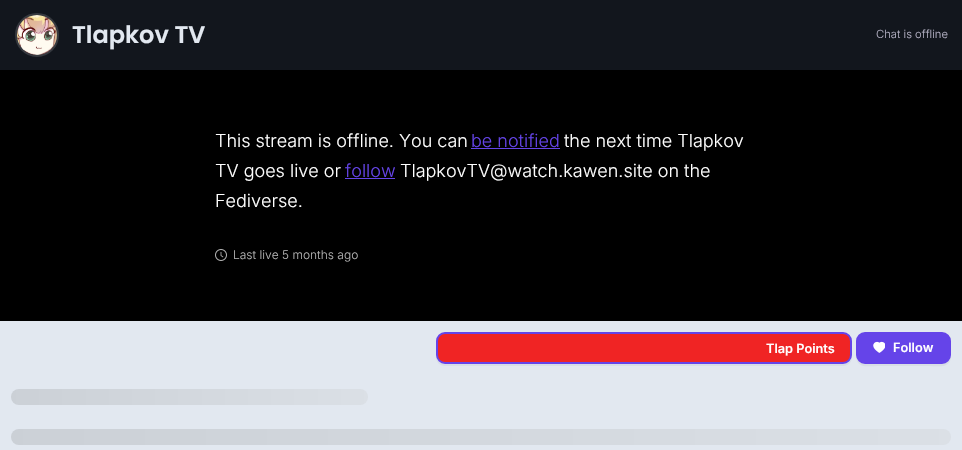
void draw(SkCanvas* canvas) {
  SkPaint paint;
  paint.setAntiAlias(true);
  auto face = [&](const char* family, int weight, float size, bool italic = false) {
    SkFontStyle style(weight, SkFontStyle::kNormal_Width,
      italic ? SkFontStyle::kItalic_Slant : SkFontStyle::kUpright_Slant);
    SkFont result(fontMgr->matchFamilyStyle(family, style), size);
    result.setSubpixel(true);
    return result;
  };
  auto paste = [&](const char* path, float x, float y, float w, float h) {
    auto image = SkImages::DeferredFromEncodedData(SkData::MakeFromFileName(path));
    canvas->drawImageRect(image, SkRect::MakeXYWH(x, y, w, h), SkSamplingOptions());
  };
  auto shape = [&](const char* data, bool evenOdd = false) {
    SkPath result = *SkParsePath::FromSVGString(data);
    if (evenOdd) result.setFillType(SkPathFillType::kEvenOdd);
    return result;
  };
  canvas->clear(0xffe2e8f0);
  paint.setColor(0xff12161d);
  canvas->drawRect(SkRect::MakeXYWH(0, 0, 962, 70), paint);
  paste("img/1.png", 17, 15, 40, 40);
  paint.setStroke(true);
  paint.setStrokeWidth(2);
  paint.setColor(0x26ffffff);
  canvas->drawCircle(37, 35, 21, paint);
  paint.setStroke(false);
  {
    const struct { float x, y, w, h; SkColor color; } items[] = {
      {0, 70, 962, 251, 0xff000000},
      {471, 148, 89, 1, 0xff6544e9},
      {345, 178, 50, 1, 0xff6544e9},
    };
    for (auto [x, y, w, h, color] : items) {
      paint.setColor(color);
      canvas->drawRect(SkRect::MakeXYWH(x, y, w, h), paint);
    }
  }
  paste("img/2.png", 215, 249, 12, 12);
  paint.setColor(0xffd8dee6);
  canvas->drawPath(shape("M436 355V357C436 362 440 366 445 366H843C848 366 852 362 852 357V355C852 360 848 364 843 364H445C440 364 436 360 436 355Z"), paint);
  paint.setColor(0xfff02424);
  canvas->drawRoundRect(SkRect::MakeXYWH(437, 333, 414, 30), 8, 8, paint);
  paint.setStroke(true);
  paint.setColor(0xff6544e9);
  canvas->drawRoundRect(SkRect::MakeXYWH(437, 333, 414, 30), 8, 8, paint);
  paint.setStroke(false);
  paint.setColor(0xffd8dee6);
  canvas->drawPath(shape("M856 355C856 369 867 366 878 366H929C940 366 951 369 951 355C951 360 947 364 942 364H865C860 364 856 360 856 355Z"), paint);
  paint.setColor(0xff6544e9);
  canvas->drawRoundRect(SkRect::MakeXYWH(857, 333, 93, 30), 8, 8, paint);
  paint.setStroke(true);
  canvas->drawRoundRect(SkRect::MakeXYWH(857, 333, 93, 30), 8, 8, paint);
  paste("img/3.png", 873, 341, 12, 12);
  paint.setStroke(false);
  {
    const SkColor colors[] = {0xffdbe0e6, 0xffcbd0d6, 0xffdbe0e6};
    const float stops[] = {0.25f, 0.37f, 0.63f};
    const SkPoint ends[] = {{-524, 397}, {904, 397}};
    paint.setShader(SkGradientShader::MakeLinear(ends, colors, stops, 3, SkTileMode::kClamp));
    paint.setAlpha(255);
  }
  canvas->drawRoundRect(SkRect::MakeXYWH(11, 389, 357, 16), 8, 8, paint);
  {
    const SkColor colors[] = {0xffdbe0e6, 0xffcbd0d6, 0xffdbe0e6};
    const float stops[] = {0.25f, 0.37f, 0.63f};
    const SkPoint ends[] = {{-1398, 437}, {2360, 437}};
    paint.setShader(SkGradientShader::MakeLinear(ends, colors, stops, 3, SkTileMode::kClamp));
    paint.setAlpha(255);
  }
  canvas->drawRoundRect(SkRect::MakeXYWH(11, 429, 940, 16), 8, 8, paint);
  auto f0 = face("Poppins", 600, 24);
  paint.setShader(nullptr);
  paint.setColor(0xffe2e8f0);
  canvas->drawString("Tlapkov TV", 72, 43, f0, paint);
  auto f1 = face("Inter", 300, 11.25f);
  paint.setColor(0xffb6b3c6);
  canvas->drawString("Chat is offline", 876, 38, f1, paint);
  auto f2 = face("Inter", 300, 18);
  paint.setColor(0xffffffff);
  canvas->drawString("This stream is offline. You can", 215, 147, f2, paint);
  paint.setColor(0xff6544e9);
  canvas->drawString("be notified", 471, 147, f2, paint);
  paint.setColor(0xffffffff);
  canvas->drawString("the next time Tlapkov", 564, 147, f2, paint);
  canvas->drawString("TV goes live or", 215, 177, f2, paint);
  paint.setColor(0xff6544e9);
  canvas->drawString("follow", 345, 177, f2, paint);
  paint.setColor(0xffffffff);
  canvas->drawString("TlapkovTV@watch.kawen.site on the", 400, 177, f2, paint);
  canvas->drawString("Fediverse.", 215, 207, f2, paint);
  auto f3 = face("Inter", 300, 12);
  paint.setColor(0xffb3b3b3);
  canvas->drawString("Last live 5 months ago", 233, 259, f3, paint);
  auto f4 = face("Inter", 600, 12.75f);
  paint.setColor(0xffffffff);
  canvas->drawString("Tlap Points", 766, 353, f4, paint);
  canvas->drawString("Follow", 893, 352, f4, paint);
}
